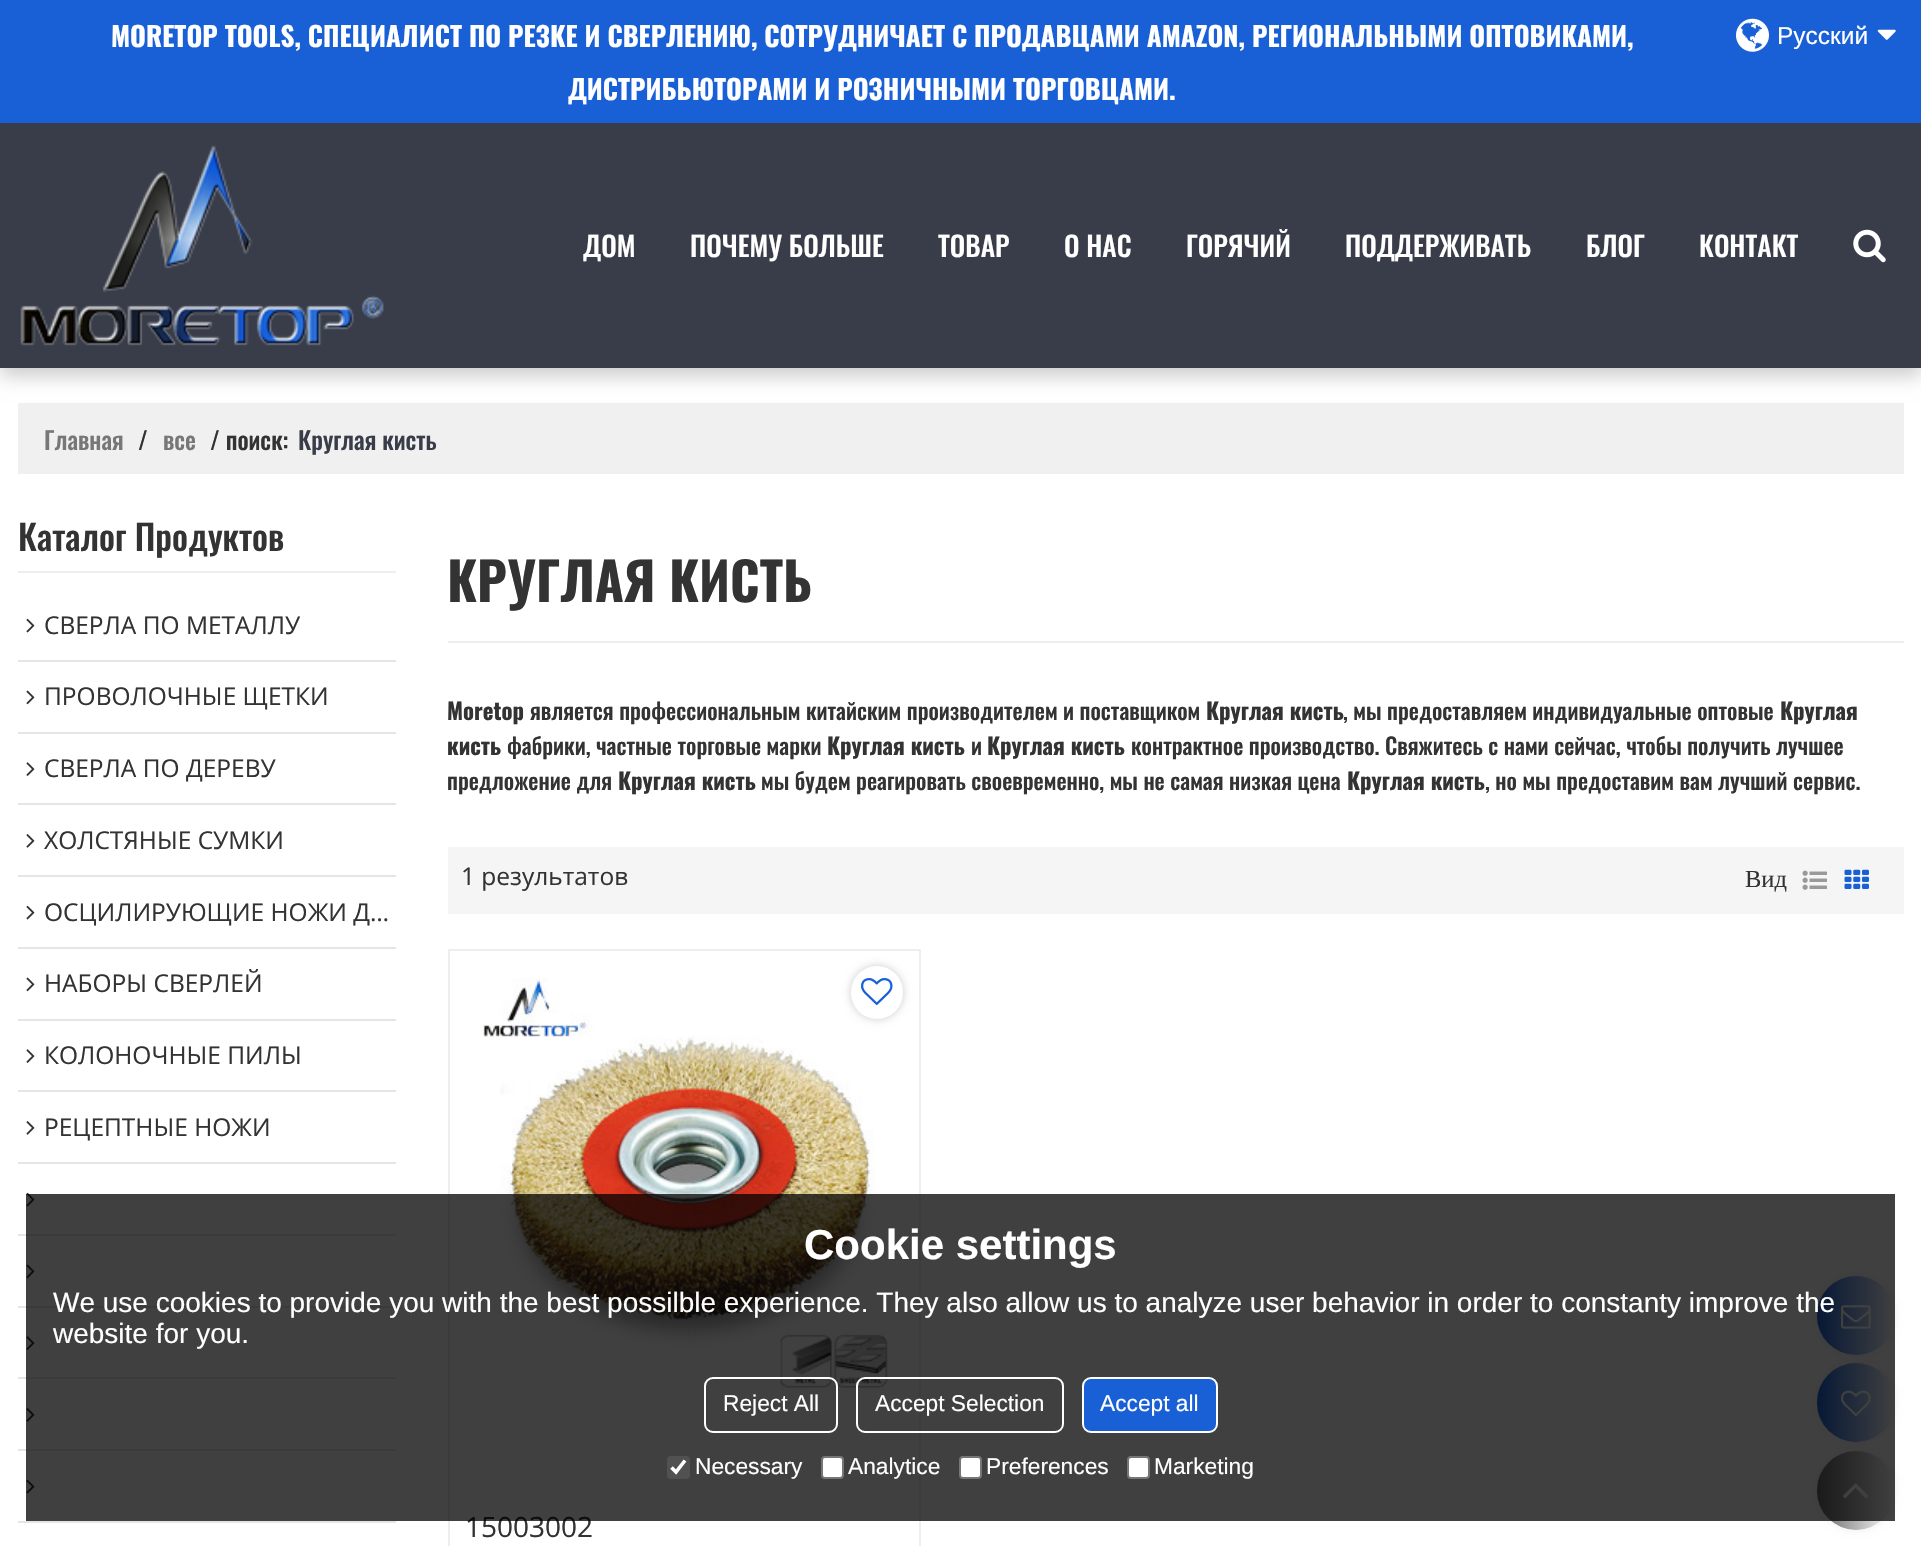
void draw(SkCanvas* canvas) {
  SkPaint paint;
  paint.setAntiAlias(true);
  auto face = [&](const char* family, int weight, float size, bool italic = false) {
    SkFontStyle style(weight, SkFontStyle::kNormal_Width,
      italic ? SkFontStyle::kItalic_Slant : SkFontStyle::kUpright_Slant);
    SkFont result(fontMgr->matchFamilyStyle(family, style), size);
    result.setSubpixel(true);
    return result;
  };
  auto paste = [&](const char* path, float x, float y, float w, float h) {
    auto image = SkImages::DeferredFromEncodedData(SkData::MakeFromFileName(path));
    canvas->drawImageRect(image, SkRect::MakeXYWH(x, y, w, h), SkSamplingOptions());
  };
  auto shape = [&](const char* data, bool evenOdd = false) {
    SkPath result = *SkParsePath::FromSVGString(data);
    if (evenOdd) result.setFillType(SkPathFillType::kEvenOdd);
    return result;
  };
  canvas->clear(0xffffffff);
  paint.setColor(0x33000000);
  paint.setMaskFilter(SkMaskFilter::MakeBlur(kNormal_SkBlurStyle, 9));
  canvas->drawRect(SkRect::MakeXYWH(0, 131, 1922, 245), paint);
  paint.setMaskFilter(nullptr);
  paint.setColor(0xff1960d6);
  canvas->drawRect(SkRect::MakeXYWH(0, 0, 1921, 123), paint);
  paste("img/1.png", 1736, 18, 33, 34);
  paste("img/2.png", 1877, 29, 19, 11);
  paint.setColor(0xff383d49);
  canvas->drawRect(SkRect::MakeXYWH(0, 123, 1921, 245), paint);
  paste("img/3.png", 20, 145, 364, 201);
  paste("img/4.png", 1853, 229, 33, 34);
  {
    const struct { float x, y, w, h; SkColor color; } items[] = {
      {18, 403, 1886, 71, 0xfff0f0f0},
      {18, 571, 378, 2, 0xffeeeeee},
      {18, 660, 378, 2, 0xffe5e5e5},
    };
    for (auto [x, y, w, h, color] : items) {
      paint.setColor(color);
      canvas->drawRect(SkRect::MakeXYWH(x, y, w, h), paint);
    }
  }
  paste("img/5.png", 26, 618, 9, 15);
  canvas->drawRect(SkRect::MakeXYWH(18, 732, 378, 2), paint);
  paste("img/6.png", 26, 690, 9, 15);
  canvas->drawRect(SkRect::MakeXYWH(18, 803, 378, 2), paint);
  paste("img/7.png", 26, 762, 9, 14);
  canvas->drawRect(SkRect::MakeXYWH(18, 875, 378, 2), paint);
  paste("img/8.png", 26, 834, 9, 14);
  canvas->drawRect(SkRect::MakeXYWH(18, 947, 378, 2), paint);
  paste("img/5.png", 26, 905, 9, 15);
  canvas->drawRect(SkRect::MakeXYWH(18, 1019, 378, 2), paint);
  paste("img/6.png", 26, 977, 9, 15);
  canvas->drawRect(SkRect::MakeXYWH(18, 1090, 378, 2), paint);
  paste("img/7.png", 26, 1049, 9, 14);
  canvas->drawRect(SkRect::MakeXYWH(18, 1162, 378, 2), paint);
  paste("img/8.png", 26, 1121, 9, 14);
  canvas->drawRect(SkRect::MakeXYWH(18, 1234, 378, 2), paint);
  paste("img/5.png", 26, 1192, 9, 15);
  canvas->drawRect(SkRect::MakeXYWH(18, 1306, 378, 2), paint);
  paste("img/6.png", 26, 1264, 9, 15);
  canvas->drawRect(SkRect::MakeXYWH(18, 1377, 378, 2), paint);
  paste("img/7.png", 26, 1336, 9, 14);
  canvas->drawRect(SkRect::MakeXYWH(18, 1449, 378, 2), paint);
  paste("img/8.png", 26, 1408, 9, 14);
  canvas->drawRect(SkRect::MakeXYWH(18, 1521, 378, 2), paint);
  paste("img/5.png", 26, 1479, 9, 15);
  paint.setColor(0xffeeeeee);
  canvas->drawRect(SkRect::MakeXYWH(448, 641, 1456, 2), paint);
  paint.setColor(0xfff5f5f5);
  canvas->drawRect(SkRect::MakeXYWH(448, 847, 1456, 67), paint);
  paste("img/9.png", 1802, 870, 25, 20);
  paste("img/10.png", 1844, 869, 25, 20);
  paint.setStroke(true);
  paint.setStrokeWidth(2);
  paint.setColor(0xffeeeeee);
  canvas->drawRect(SkRect::MakeXYWH(449, 950, 471, 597), paint);
  paste("img/12.png", 482, 978, 414, 415);
  paint.setStroke(false);
  paint.setColor(0x33000000);
  paint.setMaskFilter(SkMaskFilter::MakeBlur(kNormal_SkBlurStyle, 4.5f));
  canvas->drawRoundRect(SkRect::MakeXYWH(851, 966, 52, 53), 26, 26, paint);
  paint.setMaskFilter(nullptr);
  paint.setColor(0xffffffff);
  canvas->drawRoundRect(SkRect::MakeXYWH(851, 966, 52, 53), 26, 26, paint);
  paste("img/11.png", 861, 978, 32, 27);
  paint.setColor(0xffeeeeee);
  paint.setMaskFilter(SkMaskFilter::MakeBlur(kNormal_SkBlurStyle, 4.5f));
  canvas->drawRoundRect(SkRect::MakeXYWH(1817, 1276, 78, 79), 39, 39, paint);
  paint.setMaskFilter(nullptr);
  {
    const SkColor colors[] = {0xff1960d6, 0xffffffff};
    const float stops[] = {0, 1};
    const SkPoint ends[] = {{1817, 1315}, {1895, 1315}};
    paint.setShader(SkGradientShader::MakeLinear(ends, colors, stops, 2, SkTileMode::kClamp));
    paint.setAlpha(255);
  }
  canvas->drawRoundRect(SkRect::MakeXYWH(1817, 1276, 78, 79), 39, 39, paint);
  paste("img/13.png", 1841, 1305, 30, 24);
  paint.setShader(nullptr);
  paint.setColor(0xffeeeeee);
  paint.setMaskFilter(SkMaskFilter::MakeBlur(kNormal_SkBlurStyle, 4.5f));
  canvas->drawRoundRect(SkRect::MakeXYWH(1817, 1363, 78, 79), 39, 39, paint);
  paint.setMaskFilter(nullptr);
  {
    const SkColor colors[] = {0xff1960d6, 0xffffffff};
    const float stops[] = {0, 1};
    const SkPoint ends[] = {{1817, 1403}, {1895, 1403}};
    paint.setShader(SkGradientShader::MakeLinear(ends, colors, stops, 2, SkTileMode::kClamp));
    paint.setAlpha(255);
  }
  canvas->drawRoundRect(SkRect::MakeXYWH(1817, 1363, 78, 79), 39, 39, paint);
  paste("img/14.png", 1841, 1390, 30, 27);
  paint.setShader(nullptr);
  paint.setColor(0xffeeeeee);
  paint.setMaskFilter(SkMaskFilter::MakeBlur(kNormal_SkBlurStyle, 4.5f));
  canvas->drawRoundRect(SkRect::MakeXYWH(1817, 1451, 78, 79), 39, 39, paint);
  paint.setMaskFilter(nullptr);
  {
    const SkColor colors[] = {0xff666666, 0xffffffff};
    const float stops[] = {0, 1};
    const SkPoint ends[] = {{1817, 1490}, {1895, 1490}};
    paint.setShader(SkGradientShader::MakeLinear(ends, colors, stops, 2, SkTileMode::kClamp));
    paint.setAlpha(255);
  }
  canvas->drawRoundRect(SkRect::MakeXYWH(1817, 1451, 78, 79), 39, 39, paint);
  paste("img/15.png", 1843, 1483, 26, 16);
  auto f0 = face("Oswald", 700, 27.1f);
  paint.setShader(nullptr);
  paint.setColor(0xffffffff);
  canvas->drawString("MORETOP TOOLS, СПЕЦИАЛИСТ ПО РЕЗКЕ И СВЕРЛЕНИЮ, СОТРУДНИЧАЕТ С ПРОДАВЦАМИ AMAZON, РЕГИОНАЛЬНЫМИ ОПТОВИКАМИ,", 111, 47, f0, paint);
  canvas->drawString("ДИСТРИБЬЮТОРАМИ И РОЗНИЧНЫМИ ТОРГОВЦАМИ.", 568, 100, f0, paint);
  auto f1 = face("Liberation Sans", 400, 24.5f);
  canvas->drawString("Русский", 1777, 44, f1, paint);
  auto f2 = face("Oswald", 500, 27.5f);
  {
    const struct { const char* s; float x, y; } items[] = {
      {"ДОМ", 583, 257},
      {"ПОЧЕМУ БОЛЬШЕ", 690, 257},
      {"ТОВАР", 938, 257},
      {"О НАС", 1064, 257},
      {"ГОРЯЧИЙ", 1186, 257},
      {"ПОДДЕРЖИВАТЬ", 1345, 257},
      {"БЛОГ", 1586, 257},
      {"КОНТАКТ", 1699, 257},
    };
    for (auto [s, x, y] : items) {
      canvas->drawString(s, x, y, f2, paint);
    }
  }
  auto f3 = face("Oswald", 500, 24.5f);
  paint.setColor(0xff777777);
  canvas->drawString("Главная", 44, 450, f3, paint);
  paint.setColor(0xff333333);
  canvas->drawString("/", 138, 450, f3, paint);
  paint.setColor(0xff777777);
  canvas->drawString("все", 163, 450, f3, paint);
  paint.setColor(0xff333333);
  canvas->drawString("/ поиск:", 210, 450, f3, paint);
  paint.setColor(0xff383d49);
  canvas->drawString("Круглая кисть", 298, 450, f3, paint);
  auto f4 = face("Oswald", 500, 35);
  paint.setColor(0xff333333);
  canvas->drawString("Каталог Продуктов", 18, 551, f4, paint);
  auto f5 = face("Open Sans", 400, 24.5f);
  {
    const struct { const char* s; float x, y; } items[] = {
      {"СВЕРЛА ПО МЕТАЛЛУ", 44, 634},
      {"ПРОВОЛОЧНЫЕ ЩЕТКИ", 44, 705},
      {"СВЕРЛА ПО ДЕРЕВУ", 44, 777},
      {"ХОЛСТЯНЫЕ СУМКИ", 44, 849},
      {"ОСЦИЛИРУЮЩИЕ НОЖИ Д…", 44, 921},
      {"НАБОРЫ СВЕРЛЕЙ", 44, 992},
      {"КОЛОНОЧНЫЕ ПИЛЫ", 44, 1064},
      {"РЕЦЕПТНЫЕ НОЖИ", 44, 1136},
    };
    for (auto [s, x, y] : items) {
      canvas->drawString(s, x, y, f5, paint);
    }
  }
  auto f6 = face("Oswald", 700, 52.5f);
  canvas->drawString("КРУГЛАЯ КИСТЬ", 447, 602, f6, paint);
  auto f7 = face("Oswald", 700, 22.75f);
  canvas->drawString("Moretop", 447, 720, f7, paint);
  auto f8 = face("Oswald", 500, 22.75f);
  canvas->drawString("является профессиональным китайским производителем и поставщиком", 530, 720, f8, paint);
  canvas->drawString("Круглая кисть", 1206, 720, f7, paint);
  canvas->drawString(", мы предоставляем индивидуальные оптовые", 1343, 720, f8, paint);
  canvas->drawString("Круглая", 1780, 720, f7, paint);
  canvas->drawString("кисть", 447, 755, f7, paint);
  canvas->drawString("фабрики, частные торговые марки", 507, 755, f8, paint);
  canvas->drawString("Круглая кисть", 827, 755, f7, paint);
  canvas->drawString("и", 971, 755, f8, paint);
  canvas->drawString("Круглая кисть", 987, 755, f7, paint);
  canvas->drawString("контрактное производство. Свяжитесь с нами сейчас, чтобы получить лучшее", 1131, 755, f8, paint);
  canvas->drawString("предложение для", 447, 790, f8, paint);
  canvas->drawString("Круглая кисть", 618, 790, f7, paint);
  canvas->drawString("мы будем реагировать своевременно, мы не самая низкая цена", 761, 790, f8, paint);
  canvas->drawString("Круглая кисть", 1347, 790, f7, paint);
  canvas->drawString(", но мы предоставим вам лучший сервис.", 1485, 790, f8, paint);
  canvas->drawString("1 результатов", 461, 885, f5, paint);
  auto f9 = face("Liberation Serif", 400, 24.5f);
  canvas->drawString("Вид", 1745, 887, f9, paint);
  auto f10 = face("Open Sans", 400, 28);
  canvas->drawString("15003002", 465, 1537, f10, paint);
  paint.setColor(0xbf000000);
  canvas->drawRect(SkRect::MakeXYWH(26, 1194, 1869, 327), paint);
  auto f11 = face("Liberation Sans", 700, 42);
  paint.setColor(0xffffffff);
  canvas->drawString("Cookie settings", 804, 1259, f11, paint);
  auto f12 = face("Liberation Sans", 400, 28);
  canvas->drawString("We use cookies to provide you with the best possilble experience. They also allow us to analyze user behavior in order to constanty improve the", 53, 1312, f12, paint);
  canvas->drawString("website for you.", 53, 1343, f12, paint);
  paint.setStroke(true);
  canvas->drawRoundRect(SkRect::MakeXYWH(705, 1378, 132, 54), 8, 8, paint);
  auto f13 = face("Liberation Sans", 400, 22.75f);
  paint.setStroke(false);
  canvas->drawString("Reject All", 723, 1411, f13, paint);
  paint.setStroke(true);
  canvas->drawRoundRect(SkRect::MakeXYWH(857, 1378, 206, 54), 8, 8, paint);
  paint.setStroke(false);
  canvas->drawString("Accept Selection", 875, 1411, f13, paint);
  paint.setColor(0xff1960d6);
  canvas->drawRoundRect(SkRect::MakeXYWH(1083, 1378, 134, 54), 8, 8, paint);
  paint.setStroke(true);
  paint.setColor(0xffffffff);
  canvas->drawRoundRect(SkRect::MakeXYWH(1083, 1378, 134, 54), 8, 8, paint);
  paint.setStroke(false);
  canvas->drawString("Accept all", 1100, 1411, f13, paint);
  paint.setColor(0x4d767676);
  canvas->drawRoundRect(SkRect::MakeXYWH(667, 1456, 23, 23), 4, 4, paint);
  paint.setStroke(true);
  paint.setStrokeWidth(3.6f);
  paint.setColor(0xffffffff);
  canvas->drawPath(shape("M671.5 1467.5L676 1472L685 1460.5"), paint);
  paint.setStroke(false);
  canvas->drawString("Necessary", 695, 1474, f13, paint);
  canvas->drawRoundRect(SkRect::MakeXYWH(822, 1457, 21, 21), 3, 3, paint);
  paint.setStroke(true);
  paint.setStrokeWidth(2);
  paint.setColor(0xff767676);
  canvas->drawRoundRect(SkRect::MakeXYWH(822, 1457, 21, 21), 3, 3, paint);
  paint.setStroke(false);
  paint.setColor(0xffffffff);
  canvas->drawString("Analytice", 848, 1474, f13, paint);
  canvas->drawRoundRect(SkRect::MakeXYWH(960, 1457, 21, 21), 3, 3, paint);
  paint.setStroke(true);
  paint.setColor(0xff767676);
  canvas->drawRoundRect(SkRect::MakeXYWH(960, 1457, 21, 21), 3, 3, paint);
  paint.setStroke(false);
  paint.setColor(0xffffffff);
  canvas->drawString("Preferences", 986, 1474, f13, paint);
  canvas->drawRoundRect(SkRect::MakeXYWH(1128, 1457, 21, 21), 3, 3, paint);
  paint.setStroke(true);
  paint.setColor(0xff767676);
  canvas->drawRoundRect(SkRect::MakeXYWH(1128, 1457, 21, 21), 3, 3, paint);
  paint.setStroke(false);
  paint.setColor(0xffffffff);
  canvas->drawString("Marketing", 1154, 1474, f13, paint);
}
